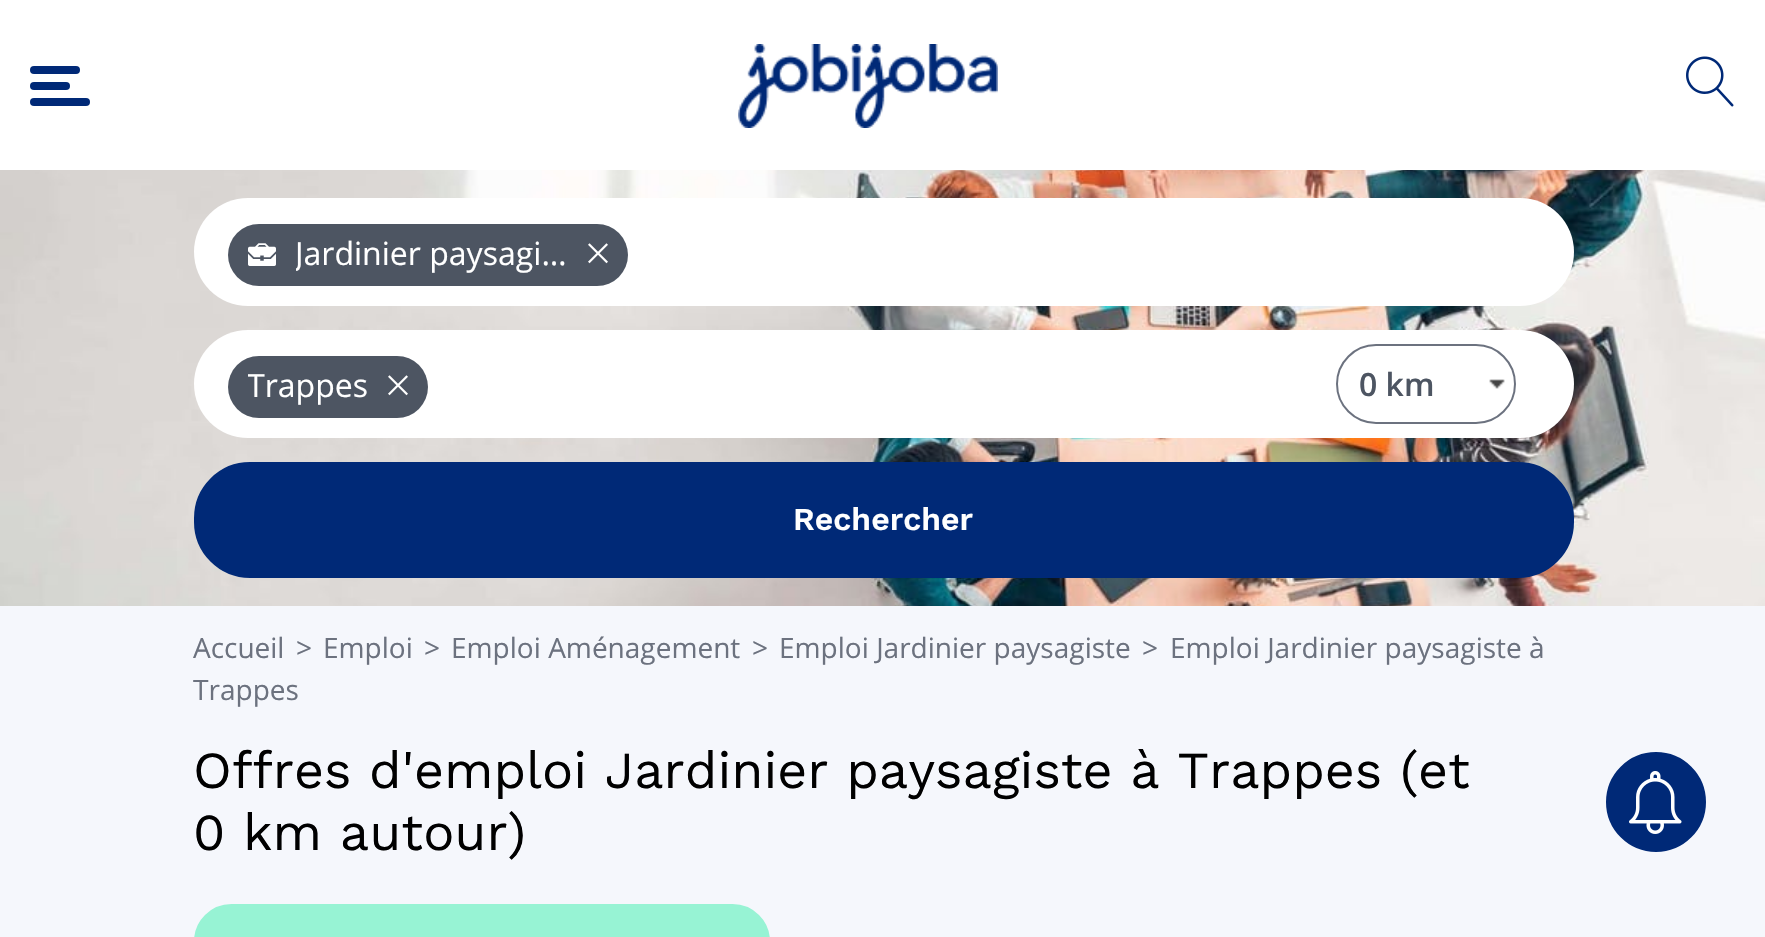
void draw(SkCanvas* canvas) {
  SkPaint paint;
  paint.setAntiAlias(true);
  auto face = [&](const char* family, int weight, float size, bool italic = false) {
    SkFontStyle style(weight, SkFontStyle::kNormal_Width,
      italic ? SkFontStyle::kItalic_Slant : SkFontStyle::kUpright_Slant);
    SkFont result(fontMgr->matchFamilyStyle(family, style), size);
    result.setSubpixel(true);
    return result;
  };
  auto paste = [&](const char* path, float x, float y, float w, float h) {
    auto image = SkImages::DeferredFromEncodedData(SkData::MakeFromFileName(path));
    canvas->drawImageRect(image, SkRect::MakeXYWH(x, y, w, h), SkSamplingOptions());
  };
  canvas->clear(0xfff5f7fc);
  paint.setColor(0xffffffff);
  canvas->drawRect(SkRect::MakeXYWH(0, 0, 1765, 170), paint);
  paint.setColor(0xff002977);
  canvas->drawRoundRect(SkRect::MakeXYWH(30, 66, 50, 8), 4, 4, paint);
  canvas->drawRoundRect(SkRect::MakeXYWH(30, 82, 40, 8), 4, 4, paint);
  canvas->drawRoundRect(SkRect::MakeXYWH(30, 98, 60, 8), 4, 4, paint);
  paste("img/1.png", 738, 44, 260, 84);
  paste("img/2.png", 1686, 56, 48, 51);
  paste("img/3.png", 0, 170, 1765, 436);
  paint.setColor(0xffffffff);
  canvas->drawRoundRect(SkRect::MakeXYWH(194, 198, 1380, 108), 54, 54, paint);
  paint.setColor(0xff4d5562);
  canvas->drawRoundRect(SkRect::MakeXYWH(228, 224, 400, 62), 31, 31, paint);
  paste("img/4.png", 248, 243, 28, 23);
  paste("img/5.png", 588, 243, 20, 21);
  paint.setColor(0xffffffff);
  canvas->drawRoundRect(SkRect::MakeXYWH(194, 330, 1380, 108), 54, 54, paint);
  paint.setColor(0xff4d5562);
  canvas->drawRoundRect(SkRect::MakeXYWH(228, 356, 200, 62), 31, 31, paint);
  paste("img/5.png", 388, 375, 20, 21);
  paint.setStroke(true);
  paint.setStrokeWidth(2);
  paint.setColor(0xff6c727f);
  canvas->drawRoundRect(SkRect::MakeXYWH(1337, 345, 178, 78), 39, 39, paint);
  paste("img/6.png", 1489, 379, 16, 10);
  paint.setStroke(false);
  paint.setColor(0xff002977);
  canvas->drawRoundRect(SkRect::MakeXYWH(195, 463, 1378, 114), 55, 55, paint);
  paint.setStroke(true);
  canvas->drawRoundRect(SkRect::MakeXYWH(195, 463, 1378, 114), 55, 55, paint);
  paint.setStroke(false);
  paint.setColor(0xff97f3d4);
  canvas->drawRoundRect(SkRect::MakeXYWH(195, 905, 574, 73), 39, 39, paint);
  paint.setStroke(true);
  canvas->drawRoundRect(SkRect::MakeXYWH(195, 905, 574, 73), 39, 39, paint);
  paint.setStroke(false);
  paint.setColor(0xff002977);
  canvas->drawCircle(1656, 802, 49, paint);
  paint.setStroke(true);
  canvas->drawCircle(1656, 802, 49, paint);
  paste("img/7.png", 1629, 771, 53, 63);
  canvas->save();
  canvas->clipRect(SkRect::MakeXYWH(296, 232, 272, 44));
  auto f0 = face("Open Sans", 400, 32);
  paint.setStroke(false);
  paint.setColor(0xffffffff);
  canvas->drawString("Jardinier paysagi…", 295, 265, f0, paint);
  canvas->restore();
  canvas->save();
  canvas->clipRect(SkRect::MakeXYWH(248, 364, 120, 44));
  canvas->drawString("Trappes", 247, 397, f0, paint);
  canvas->restore();
  auto f1 = face("Open Sans", 600, 32);
  paint.setColor(0xff4d5562);
  canvas->drawString("0 km", 1359, 396, f1, paint);
  auto f2 = face("Work Sans", 600, 32);
  paint.setColor(0xffffffff);
  canvas->drawString("Rechercher", 793, 530, f2, paint);
  auto f3 = face("Open Sans", 400, 28);
  paint.setColor(0xff6c727f);
  {
    const struct { const char* s; float x, y; } items[] = {
      {"Accueil", 193, 658},
      {">", 296, 658},
      {"Emploi", 323, 658},
      {">", 424, 658},
      {"Emploi Aménagement", 451, 658},
      {">", 752, 658},
      {"Emploi Jardinier paysagiste", 779, 658},
      {">", 1142, 658},
      {"Emploi Jardinier paysagiste à", 1170, 658},
      {"Trappes", 193, 700},
    };
    for (auto [s, x, y] : items) {
      canvas->drawString(s, x, y, f3, paint);
    }
  }
  auto f4 = face("Work Sans", 400, 52);
  paint.setColor(0xff000000);
  canvas->drawString("Offres d'emploi Jardinier paysagiste à Trappes (et", 193, 788, f4, paint);
  canvas->drawString("0 km autour)", 193, 850, f4, paint);
}
